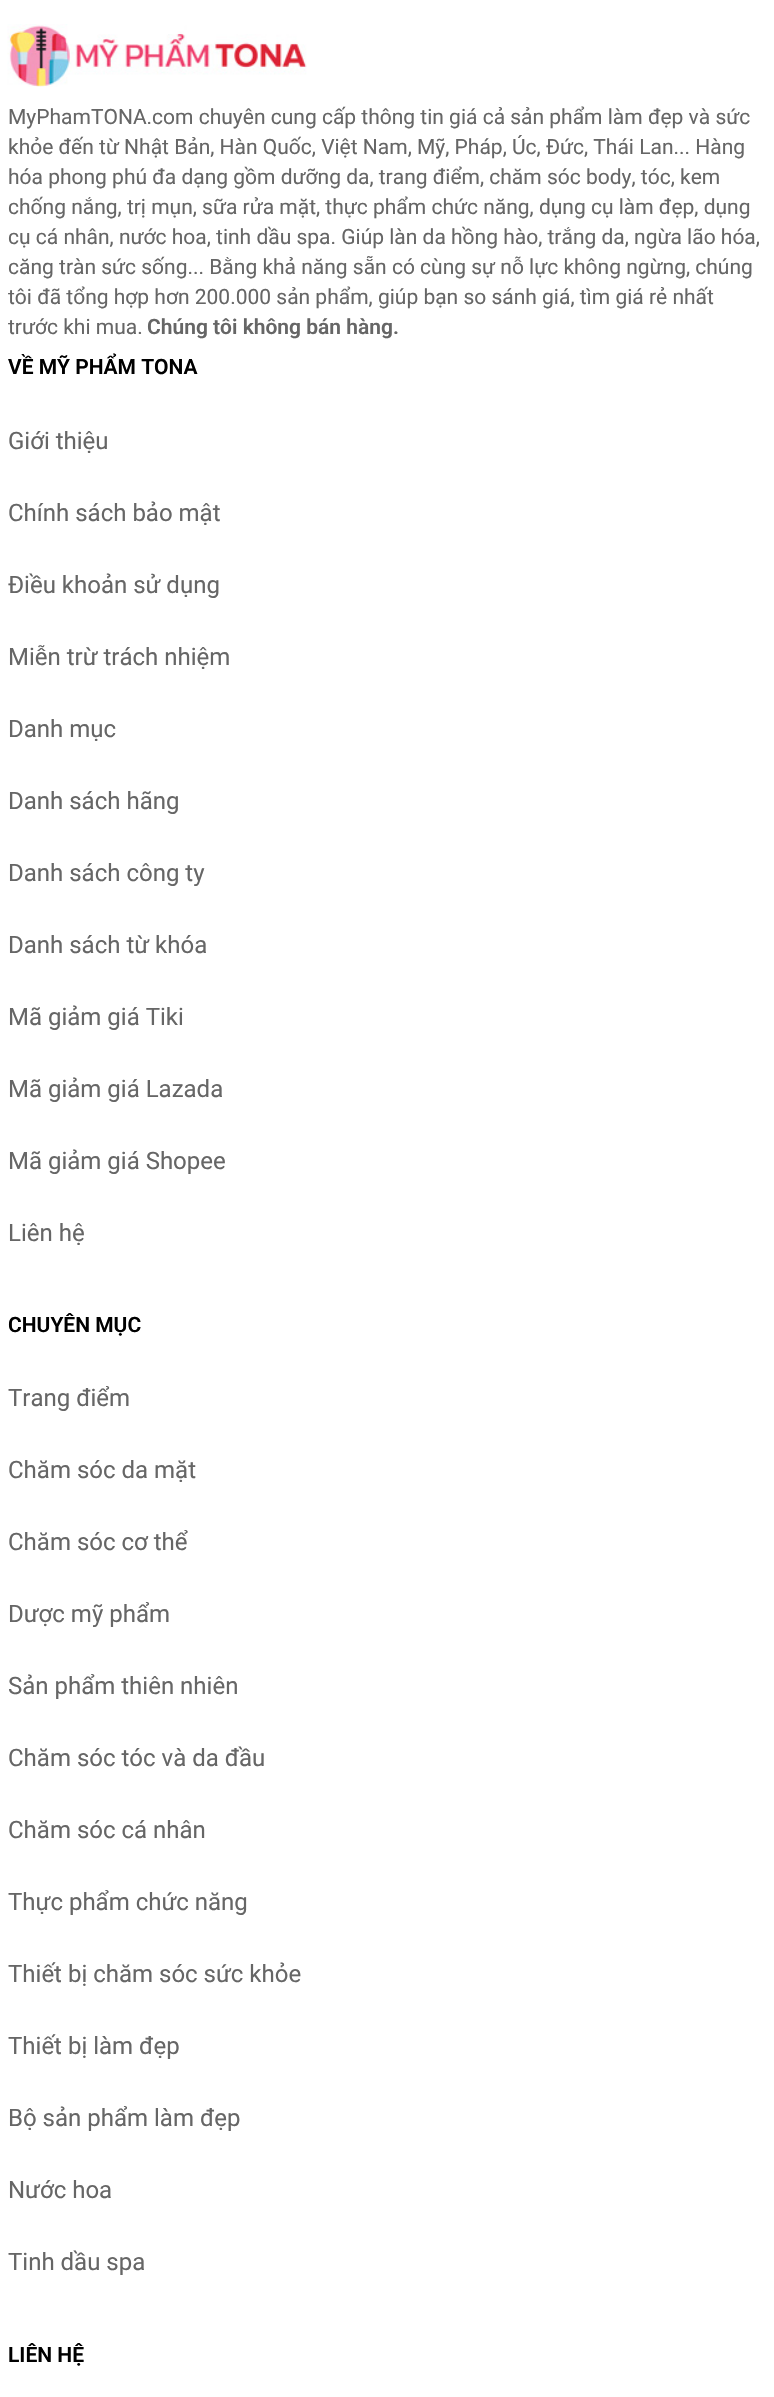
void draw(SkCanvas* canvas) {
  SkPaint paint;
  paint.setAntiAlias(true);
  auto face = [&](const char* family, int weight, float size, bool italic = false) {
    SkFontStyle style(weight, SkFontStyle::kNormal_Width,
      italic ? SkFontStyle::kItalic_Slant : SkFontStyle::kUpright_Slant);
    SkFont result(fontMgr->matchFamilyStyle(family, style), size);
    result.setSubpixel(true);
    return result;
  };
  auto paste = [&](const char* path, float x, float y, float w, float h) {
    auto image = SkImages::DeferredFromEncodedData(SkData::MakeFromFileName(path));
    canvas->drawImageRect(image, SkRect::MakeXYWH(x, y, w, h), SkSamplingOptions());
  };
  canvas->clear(0xffffffff);
  paste("img/1.png", 7, 24, 300, 63);
  auto f0 = face("Roboto", 400, 21);
  paint.setColor(0xff666666);
  {
    const struct { const char* s; float x, y; } items[] = {
      {"MyPhamTONA.com chuyên cung cấp thông tin giá cả sản phẩm làm đẹp và sức", 8, 124},
      {"khỏe đến từ Nhật Bản, Hàn Quốc, Việt Nam, Mỹ, Pháp, Úc, Đức, Thái Lan... Hàng", 8, 154},
      {"hóa phong phú đa dạng gồm dưỡng da, trang điểm, chăm sóc body, tóc, kem", 8, 184},
      {"chống nắng, trị mụn, sữa rửa mặt, thực phẩm chức năng, dụng cụ làm đẹp, dụng", 8, 214},
      {"cụ cá nhân, nước hoa, tinh dầu spa. Giúp làn da hồng hào, trắng da, ngừa lão hóa,", 8, 244},
      {"căng tràn sức sống... Bằng khả năng sẵn có cùng sự nỗ lực không ngừng, chúng", 8, 274},
      {"tôi đã tổng hợp hơn 200.000 sản phẩm, giúp bạn so sánh giá, tìm giá rẻ nhất", 8, 304},
      {"trước khi mua.", 8, 334},
    };
    for (auto [s, x, y] : items) {
      canvas->drawString(s, x, y, f0, paint);
    }
  }
  auto f1 = face("Roboto", 600, 21);
  canvas->drawString("Chúng tôi không bán hàng.", 147, 334, f1, paint);
  paint.setColor(0xff000000);
  canvas->drawString("VỀ MỸ PHẨM TONA", 8, 374, f1, paint);
  auto f2 = face("Roboto", 400, 24);
  paint.setColor(0xff666666);
  {
    const struct { const char* s; float x, y; } items[] = {
      {"Giới thiệu", 8, 449},
      {"Chính sách bảo mật", 8, 521},
      {"Điều khoản sử dụng", 8, 593},
      {"Miễn trừ trách nhiệm", 8, 665},
      {"Danh mục", 8, 737},
      {"Danh sách hãng", 8, 809},
      {"Danh sách công ty", 8, 881},
      {"Danh sách từ khóa", 8, 953},
      {"Mã giảm giá Tiki", 8, 1025},
      {"Mã giảm giá Lazada", 8, 1097},
      {"Mã giảm giá Shopee", 8, 1169},
      {"Liên hệ", 8, 1241},
    };
    for (auto [s, x, y] : items) {
      canvas->drawString(s, x, y, f2, paint);
    }
  }
  paint.setColor(0xff000000);
  canvas->drawString("CHUYÊN MỤC", 8, 1332, f1, paint);
  paint.setColor(0xff666666);
  {
    const struct { const char* s; float x, y; } items[] = {
      {"Trang điểm", 8, 1406},
      {"Chăm sóc da mặt", 8, 1478},
      {"Chăm sóc cơ thể", 8, 1550},
      {"Dược mỹ phẩm", 8, 1622},
      {"Sản phẩm thiên nhiên", 8, 1694},
      {"Chăm sóc tóc và da đầu", 8, 1766},
      {"Chăm sóc cá nhân", 8, 1838},
      {"Thực phẩm chức năng", 8, 1910},
      {"Thiết bị chăm sóc sức khỏe", 8, 1982},
      {"Thiết bị làm đẹp", 8, 2054},
      {"Bộ sản phẩm làm đẹp", 8, 2126},
      {"Nước hoa", 8, 2198},
      {"Tinh dầu spa", 8, 2270},
    };
    for (auto [s, x, y] : items) {
      canvas->drawString(s, x, y, f2, paint);
    }
  }
  paint.setColor(0xff000000);
  canvas->drawString("LIÊN HỆ", 8, 2362, f1, paint);
}
